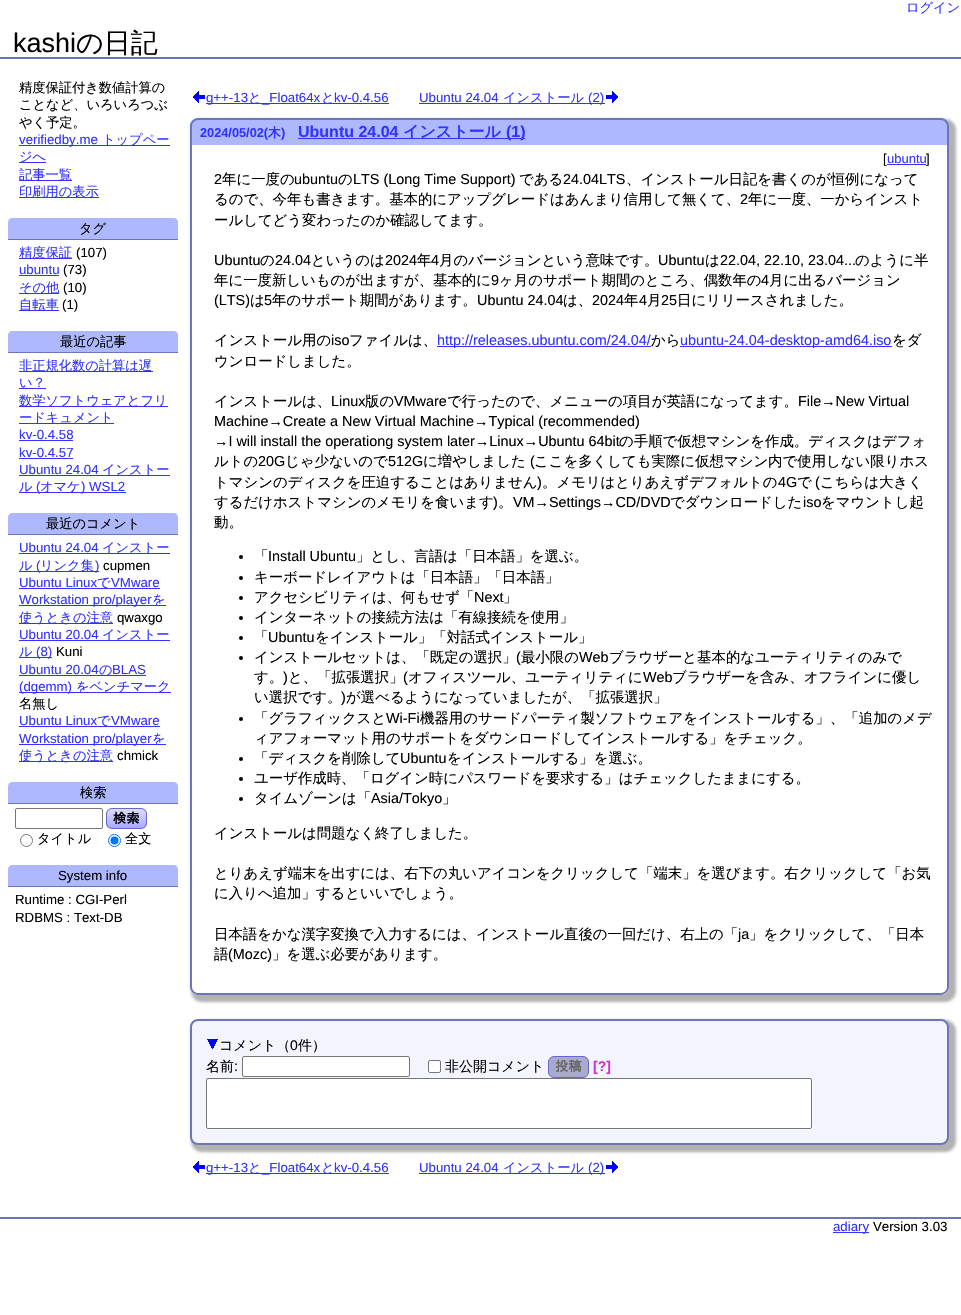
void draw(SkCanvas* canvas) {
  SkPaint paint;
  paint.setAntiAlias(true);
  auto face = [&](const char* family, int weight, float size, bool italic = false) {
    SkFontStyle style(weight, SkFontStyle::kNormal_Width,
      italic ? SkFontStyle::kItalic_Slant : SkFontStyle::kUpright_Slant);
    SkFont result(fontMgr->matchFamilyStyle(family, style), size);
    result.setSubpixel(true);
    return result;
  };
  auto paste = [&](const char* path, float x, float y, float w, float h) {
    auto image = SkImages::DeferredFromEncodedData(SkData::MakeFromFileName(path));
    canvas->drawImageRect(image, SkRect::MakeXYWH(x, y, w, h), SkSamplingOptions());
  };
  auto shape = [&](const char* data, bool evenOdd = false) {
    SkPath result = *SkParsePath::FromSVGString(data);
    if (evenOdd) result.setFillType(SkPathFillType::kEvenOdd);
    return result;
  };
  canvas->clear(0xffffffff);
  {
    const struct { float x, y, w, h; SkColor color; } items[] = {
      {0, 57, 961, 2, 0xff6b75b8},
      {19, 145, 151, 1, 0xff3333ff},
      {19, 162, 27, 1, 0xff3333ff},
      {19, 180, 53, 1, 0xff3333ff},
      {19, 197, 80, 1, 0xff3333ff},
    };
    for (auto [x, y, w, h, color] : items) {
      paint.setColor(color);
      canvas->drawRect(SkRect::MakeXYWH(x, y, w, h), paint);
    }
  }
  paint.setColor(0xffadb8ff);
  canvas->drawPath(shape("M12 218H174C176 218 178 220 178 222V240H8V222C8 220 10 218 12 218Z"), paint);
  {
    const struct { float x, y, w, h; SkColor color; } items[] = {
      {8, 239, 170, 1, 0xff6b75b8},
      {19, 258, 53, 1, 0xff3333ff},
      {19, 275, 40, 1, 0xff3333ff},
      {19, 293, 40, 1, 0xff3333ff},
      {19, 310, 40, 1, 0xff3333ff},
    };
    for (auto [x, y, w, h, color] : items) {
      paint.setColor(color);
      canvas->drawRect(SkRect::MakeXYWH(x, y, w, h), paint);
    }
  }
  paint.setColor(0xffadb8ff);
  canvas->drawPath(shape("M12 331H174C176 331 178 333 178 335V353H8V335C8 333 10 331 12 331Z"), paint);
  {
    const struct { float x, y, w, h; SkColor color; } items[] = {
      {8, 352, 170, 1, 0xff6b75b8},
      {19, 371, 134, 1, 0xff3333ff},
      {19, 388, 27, 1, 0xff3333ff},
      {19, 406, 149, 1, 0xff3333ff},
      {19, 423, 95, 1, 0xff3333ff},
      {19, 440, 54, 1, 0xff3333ff},
      {19, 458, 54, 1, 0xff3333ff},
      {19, 475, 151, 1, 0xff3333ff},
      {19, 492, 107, 1, 0xff3333ff},
    };
    for (auto [x, y, w, h, color] : items) {
      paint.setColor(color);
      canvas->drawRect(SkRect::MakeXYWH(x, y, w, h), paint);
    }
  }
  paint.setColor(0xffadb8ff);
  canvas->drawPath(shape("M12 513H174C176 513 178 515 178 517V535H8V517C8 515 10 513 12 513Z"), paint);
  {
    const struct { float x, y, w, h; SkColor color; } items[] = {
      {8, 534, 170, 1, 0xff6b75b8},
      {19, 553, 151, 1, 0xff3333ff},
      {19, 571, 80, 1, 0xff3333ff},
      {19, 588, 141, 1, 0xff3333ff},
      {19, 605, 147, 1, 0xff3333ff},
      {19, 623, 94, 1, 0xff3333ff},
      {19, 640, 151, 1, 0xff3333ff},
      {19, 657, 33, 1, 0xff3333ff},
      {19, 675, 127, 1, 0xff3333ff},
      {19, 692, 152, 1, 0xff3333ff},
      {19, 726, 141, 1, 0xff3333ff},
      {19, 744, 147, 1, 0xff3333ff},
      {19, 761, 94, 1, 0xff3333ff},
    };
    for (auto [x, y, w, h, color] : items) {
      paint.setColor(color);
      canvas->drawRect(SkRect::MakeXYWH(x, y, w, h), paint);
    }
  }
  paint.setColor(0xffadb8ff);
  canvas->drawPath(shape("M12 782H174C176 782 178 784 178 786V804H8V786C8 784 10 782 12 782Z"), paint);
  paint.setColor(0xff6b75b8);
  canvas->drawRect(SkRect::MakeXYWH(8, 803, 170, 1), paint);
  paint.setStroke(true);
  paint.setStrokeWidth(1);
  paint.setColor(0xff767676);
  canvas->drawRoundRect(SkRect::MakeXYWH(15.5f, 808.5f, 87, 20), 1.5f, 1.5f, paint);
  canvas->save();
  canvas->clipPath(shape("M112 808H141C144.5 808 147 810.5 147 814V823C147 826.5 144.5 829 141 829H112C108.5 829 106 826.5 106 823V814C106 810.5 108.5 808 112 808Z"), true);
  paint.setStroke(false);
  {
    const SkColor colors[] = {0xffddddff, 0xffaaaaff};
    const float stops[] = {0, 1};
    const SkPoint ends[] = {{127, 809}, {127, 828}};
    paint.setShader(SkGradientShader::MakeLinear(ends, colors, stops, 2, SkTileMode::kClamp));
    paint.setAlpha(255);
  }
  canvas->drawRect(SkRect::MakeXYWH(106, 809, 41, 19), paint);
  canvas->restore();
  paint.setStroke(true);
  paint.setShader(nullptr);
  paint.setColor(0xff6666cc);
  canvas->drawRoundRect(SkRect::MakeXYWH(106.5f, 808.5f, 40, 20), 5.5f, 5.5f, paint);
  paint.setColor(0xff767676);
  canvas->drawCircle(26.5f, 840.5f, 6, paint);
  paint.setColor(0xff0075ff);
  canvas->drawCircle(114.5f, 840.5f, 6, paint);
  paint.setStroke(false);
  canvas->drawCircle(114.5f, 840.5f, 4, paint);
  paint.setColor(0xffadb8ff);
  canvas->drawPath(shape("M12 865H174C176 865 178 867 178 869V887H8V869C8 867 10 865 12 865Z"), paint);
  paint.setColor(0xff6b75b8);
  canvas->drawRect(SkRect::MakeXYWH(8, 886, 170, 1), paint);
  paste("img/1.png", 193, 91, 12, 12);
  paint.setColor(0xff3333ff);
  canvas->drawRect(SkRect::MakeXYWH(206, 103, 183, 1), paint);
  canvas->drawRect(SkRect::MakeXYWH(419, 103, 186, 1), paint);
  paste("img/2.png", 606, 91, 12, 12);
  paint.setColor(0x4d000000);
  paint.setMaskFilter(SkMaskFilter::MakeBlur(kNormal_SkBlurStyle, 1.5f));
  canvas->drawRoundRect(SkRect::MakeXYWH(191, 119, 765, 883), 11, 11, paint);
  paint.setMaskFilter(nullptr);
  paint.setColor(0xffadb8ff);
  canvas->drawPath(shape("M198 118H941C945.5 118 949 121.5 949 126V145H190V126C190 121.5 193.5 118 198 118Z"), paint);
  paint.setColor(0xff6b75b8);
  canvas->drawPath(shape("M198 118H941C945 118 949 122 949 126V145H190V126C190 122 194 118 198 118ZM198 120H941C944 120 947 123 947 126V145H192V126C192 123 195 120 198 120Z", true), paint);
  paint.setColor(0xff3333ff);
  canvas->drawRect(SkRect::MakeXYWH(298, 138, 227, 1), paint);
  paint.setColor(0xffffffff);
  canvas->drawPath(shape("M190 145H949V987C949 991.5 945.5 995 941 995H198C193.5 995 190 991.5 190 987Z"), paint);
  paint.setColor(0xff6b75b8);
  canvas->drawPath(shape("M190 145H949V987C949 991 945 995 941 995H198C194 995 190 991 190 987ZM192 145H947V987C947 990 944 993 941 993H198C195 993 192 990 192 987Z", true), paint);
  {
    const struct { float x, y, w, h; SkColor color; } items[] = {
      {887, 164, 39, 1, 0xff3333ff},
      {437, 346, 214, 1, 0xff3333ff},
      {680, 346, 212, 1, 0xff3333ff},
    };
    for (auto [x, y, w, h, color] : items) {
      paint.setColor(color);
      canvas->drawRect(SkRect::MakeXYWH(x, y, w, h), paint);
    }
  }
  paint.setColor(0xff000000);
  canvas->drawCircle(241, 557, 2, paint);
  canvas->drawCircle(241, 578, 2, paint);
  canvas->drawCircle(241, 598, 2, paint);
  canvas->drawCircle(241, 618, 2, paint);
  canvas->drawCircle(241, 638, 2, paint);
  canvas->drawCircle(241, 658, 2, paint);
  canvas->drawCircle(241, 719, 2, paint);
  canvas->drawCircle(241, 759, 2, paint);
  canvas->drawCircle(241, 779, 2, paint);
  canvas->drawCircle(241, 799, 2, paint);
  paint.setColor(0x4d000000);
  paint.setMaskFilter(SkMaskFilter::MakeBlur(kNormal_SkBlurStyle, 1.5f));
  canvas->drawRoundRect(SkRect::MakeXYWH(191, 1020, 765, 132), 11, 11, paint);
  paint.setMaskFilter(nullptr);
  paint.setColor(0xfff4f4ff);
  canvas->drawRoundRect(SkRect::MakeXYWH(191, 1020, 757, 124), 7, 7, paint);
  paint.setStroke(true);
  paint.setStrokeWidth(2);
  paint.setColor(0xff6b75b8);
  canvas->drawRoundRect(SkRect::MakeXYWH(191, 1020, 757, 124), 7, 7, paint);
  paste("img/3.png", 207, 1039, 11, 10);
  paint.setStroke(false);
  paint.setColor(0xffffffff);
  canvas->drawRoundRect(SkRect::MakeXYWH(242.5f, 1056.5f, 167, 20), 1.5f, 1.5f, paint);
  paint.setStroke(true);
  paint.setStrokeWidth(1);
  paint.setColor(0xff767676);
  canvas->drawRoundRect(SkRect::MakeXYWH(242.5f, 1056.5f, 167, 20), 1.5f, 1.5f, paint);
  paint.setStroke(false);
  paint.setColor(0xffffffff);
  canvas->drawRoundRect(SkRect::MakeXYWH(428.5f, 1060.5f, 12, 12), 1.5f, 1.5f, paint);
  paint.setStroke(true);
  paint.setColor(0xff767676);
  canvas->drawRoundRect(SkRect::MakeXYWH(428.5f, 1060.5f, 12, 12), 1.5f, 1.5f, paint);
  paint.setStroke(false);
  paint.setColor(0xffaaaacc);
  canvas->drawRoundRect(SkRect::MakeXYWH(548.5f, 1056.5f, 40, 21), 5.5f, 5.5f, paint);
  paint.setStroke(true);
  paint.setColor(0xff6666cc);
  canvas->drawRoundRect(SkRect::MakeXYWH(548.5f, 1056.5f, 40, 21), 5.5f, 5.5f, paint);
  paint.setStroke(false);
  paint.setColor(0xffffffff);
  canvas->drawRoundRect(SkRect::MakeXYWH(206.5f, 1078.5f, 605, 50), 1.5f, 1.5f, paint);
  paint.setStroke(true);
  paint.setColor(0xff767676);
  canvas->drawRoundRect(SkRect::MakeXYWH(206.5f, 1078.5f, 605, 50), 1.5f, 1.5f, paint);
  paste("img/1.png", 193, 1161, 12, 12);
  paint.setStroke(false);
  paint.setColor(0xff3333ff);
  canvas->drawRect(SkRect::MakeXYWH(206, 1173, 183, 1), paint);
  canvas->drawRect(SkRect::MakeXYWH(419, 1173, 186, 1), paint);
  paste("img/2.png", 606, 1161, 12, 12);
  paint.setColor(0xff6b75b8);
  canvas->drawRect(SkRect::MakeXYWH(0, 1217, 961, 2), paint);
  paint.setColor(0xff3333ff);
  canvas->drawRect(SkRect::MakeXYWH(833, 1232, 36, 1), paint);
  auto f0 = face("WenQuanYi Zen Hei", 500, 13.25f);
  canvas->drawString("ログイン", 906, 12, f0, paint);
  auto f1 = face("Liberation Sans", 400, 27);
  paint.setColor(0xff000000);
  canvas->drawString("kashi", 13, 52, f1, paint);
  auto f2 = face("WenQuanYi Zen Hei", 500, 27);
  canvas->drawString("の日記", 76, 52, f2, paint);
  {
    const struct { const char* s; float x, y; } items[] = {
      {"精度保証付き数値計算の", 19, 92},
      {"ことなど、いろいろつぶ", 19, 109},
      {"やく予定。", 19, 127},
    };
    for (auto [s, x, y] : items) {
      canvas->drawString(s, x, y, f0, paint);
    }
  }
  auto f3 = face("Liberation Sans", 400, 13.25f);
  paint.setColor(0xff3333ff);
  canvas->drawString("verifiedby.me", 19, 144, f3, paint);
  {
    const struct { const char* s; float x, y; } items[] = {
      {"トップペー", 102, 144},
      {"ジへ", 19, 161},
      {"記事一覧", 19, 179},
      {"印刷用の表示", 19, 196},
    };
    for (auto [s, x, y] : items) {
      canvas->drawString(s, x, y, f0, paint);
    }
  }
  paint.setColor(0xff000000);
  canvas->drawString("タグ", 79, 233, f0, paint);
  paint.setColor(0xff3333ff);
  canvas->drawString("精度保証", 19, 257, f0, paint);
  paint.setColor(0xff000000);
  canvas->drawString("(107)", 76, 257, f3, paint);
  paint.setColor(0xff3333ff);
  canvas->drawString("ubuntu", 19, 274, f3, paint);
  paint.setColor(0xff000000);
  canvas->drawString("(73)", 63, 274, f3, paint);
  paint.setColor(0xff3333ff);
  canvas->drawString("その他", 19, 292, f0, paint);
  paint.setColor(0xff000000);
  canvas->drawString("(10)", 63, 292, f3, paint);
  paint.setColor(0xff3333ff);
  canvas->drawString("自転車", 19, 309, f0, paint);
  paint.setColor(0xff000000);
  canvas->drawString("(1)", 62, 309, f3, paint);
  canvas->drawString("最近の記事", 60, 346, f0, paint);
  paint.setColor(0xff3333ff);
  {
    const struct { const char* s; float x, y; } items[] = {
      {"非正規化数の計算は遅", 19, 370},
      {"い？", 19, 387},
      {"数学ソフトウェアとフリ", 19, 405},
      {"ードキュメント", 19, 422},
    };
    for (auto [s, x, y] : items) {
      canvas->drawString(s, x, y, f0, paint);
    }
  }
  {
    const struct { const char* s; float x, y; } items[] = {
      {"kv-0.4.58", 19, 439},
      {"kv-0.4.57", 19, 457},
      {"Ubuntu 24.04", 19, 474},
    };
    for (auto [s, x, y] : items) {
      canvas->drawString(s, x, y, f3, paint);
    }
  }
  canvas->drawString("インストー", 102, 474, f0, paint);
  canvas->drawString("ル", 19, 491, f0, paint);
  canvas->drawString("(", 36, 491, f3, paint);
  canvas->drawString("オマケ", 40, 491, f0, paint);
  canvas->drawString(") WSL2", 81, 491, f3, paint);
  paint.setColor(0xff000000);
  canvas->drawString("最近のコメント", 46, 528, f0, paint);
  paint.setColor(0xff3333ff);
  canvas->drawString("Ubuntu 24.04", 19, 552, f3, paint);
  canvas->drawString("インストー", 102, 552, f0, paint);
  canvas->drawString("ル", 19, 570, f0, paint);
  canvas->drawString("(", 36, 570, f3, paint);
  canvas->drawString("リンク集", 40, 570, f0, paint);
  canvas->drawString(")", 95, 570, f3, paint);
  paint.setColor(0xff000000);
  canvas->drawString("cupmen", 103, 570, f3, paint);
  paint.setColor(0xff3333ff);
  canvas->drawString("Ubuntu Linux", 19, 587, f3, paint);
  canvas->drawString("で", 97, 587, f0, paint);
  canvas->drawString("VMware", 111, 587, f3, paint);
  canvas->drawString("Workstation pro/player", 19, 604, f3, paint);
  canvas->drawString("を", 152, 604, f0, paint);
  canvas->drawString("使うときの注意", 19, 622, f0, paint);
  paint.setColor(0xff000000);
  canvas->drawString("qwaxgo", 117, 622, f3, paint);
  paint.setColor(0xff3333ff);
  canvas->drawString("Ubuntu 20.04", 19, 639, f3, paint);
  canvas->drawString("インストー", 102, 639, f0, paint);
  canvas->drawString("ル", 19, 656, f0, paint);
  canvas->drawString("(8)", 36, 656, f3, paint);
  paint.setColor(0xff000000);
  canvas->drawString("Kuni", 56, 656, f3, paint);
  paint.setColor(0xff3333ff);
  canvas->drawString("Ubuntu 20.04", 19, 674, f3, paint);
  canvas->drawString("の", 99, 674, f0, paint);
  canvas->drawString("BLAS", 112, 674, f3, paint);
  canvas->drawString("(dgemm)", 19, 691, f3, paint);
  canvas->drawString("をベンチマーク", 76, 691, f0, paint);
  paint.setColor(0xff000000);
  canvas->drawString("名無し", 19, 708, f0, paint);
  paint.setColor(0xff3333ff);
  canvas->drawString("Ubuntu Linux", 19, 725, f3, paint);
  canvas->drawString("で", 97, 725, f0, paint);
  canvas->drawString("VMware", 111, 725, f3, paint);
  canvas->drawString("Workstation pro/player", 19, 743, f3, paint);
  canvas->drawString("を", 152, 743, f0, paint);
  canvas->drawString("使うときの注意", 19, 760, f0, paint);
  paint.setColor(0xff000000);
  canvas->drawString("chmick", 117, 760, f3, paint);
  canvas->drawString("検索", 80, 797, f0, paint);
  auto f4 = face("IPAGothic", 700, 13.25f);
  canvas->drawString("検索", 113, 823, f4, paint);
  canvas->drawString("タイトル", 37, 843, f0, paint);
  canvas->drawString("全文", 125, 843, f0, paint);
  {
    const struct { const char* s; float x, y; } items[] = {
      {"System info", 58, 880},
      {"Runtime : CGI-Perl", 15, 904},
      {"RDBMS : Text-DB", 15, 922},
    };
    for (auto [s, x, y] : items) {
      canvas->drawString(s, x, y, f3, paint);
    }
  }
  paint.setColor(0xff3333ff);
  canvas->drawString("g++-13", 206, 102, f3, paint);
  canvas->drawString("と", 248, 102, f0, paint);
  canvas->drawString("_Float64x", 262, 102, f3, paint);
  canvas->drawString("と", 321, 102, f0, paint);
  canvas->drawString("kv-0.4.56", 334, 102, f3, paint);
  canvas->drawString("Ubuntu 24.04", 419, 102, f3, paint);
  canvas->drawString("インストール", 503, 102, f0, paint);
  canvas->drawString("(2)", 588, 102, f3, paint);
  auto f5 = face("Liberation Sans", 700, 12.75f);
  canvas->drawString("2024/05/02(", 200, 137, f5, paint);
  auto f6 = face("WenQuanYi Zen Hei", 700, 12.75f);
  canvas->drawString("木", 268, 137, f6, paint);
  canvas->drawString(")", 281, 137, f5, paint);
  auto f7 = face("Liberation Sans", 700, 16);
  canvas->drawString("Ubuntu 24.04", 298, 137, f7, paint);
  auto f8 = face("WenQuanYi Zen Hei", 700, 16);
  canvas->drawString("インストール", 403, 137, f8, paint);
  canvas->drawString("(1)", 506, 137, f7, paint);
  auto f9 = face("Liberation Sans", 400, 13);
  paint.setColor(0xff000000);
  canvas->drawString("[", 883, 163, f9, paint);
  paint.setColor(0xff3333ff);
  canvas->drawString("ubuntu", 887, 163, f9, paint);
  paint.setColor(0xff000000);
  canvas->drawString("]", 926, 163, f9, paint);
  auto f10 = face("Liberation Sans", 400, 14.4f);
  canvas->drawString("2", 214, 184, f10, paint);
  auto f11 = face("WenQuanYi Zen Hei", 500, 14.4f);
  canvas->drawString("年に一度の", 222, 184, f11, paint);
  canvas->drawString("ubuntu", 294, 184, f10, paint);
  canvas->drawString("の", 338, 184, f11, paint);
  canvas->drawString("LTS (Long Time Support)", 353, 184, f10, paint);
  canvas->drawString("である", 519, 184, f11, paint);
  canvas->drawString("24.04LTS", 563, 184, f10, paint);
  canvas->drawString("、インストール日記を書くのが恒例になって", 626, 184, f11, paint);
  canvas->drawString("るので、今年も書きます。基本的にアップグレードはあんまり信用して無くて、", 214, 204, f11, paint);
  canvas->drawString("2", 740, 204, f10, paint);
  canvas->drawString("年に一度、一からインスト", 748, 204, f11, paint);
  canvas->drawString("ールしてどう変わったのか確認してます。", 214, 225, f11, paint);
  canvas->drawString("Ubuntu", 214, 265, f10, paint);
  canvas->drawString("の", 260, 265, f11, paint);
  canvas->drawString("24.04", 275, 265, f10, paint);
  canvas->drawString("というのは", 311, 265, f11, paint);
  canvas->drawString("2024", 385, 265, f10, paint);
  canvas->drawString("年", 417, 265, f11, paint);
  canvas->drawString("4", 431, 265, f10, paint);
  canvas->drawString("月のバージョンという意味です。", 439, 265, f11, paint);
  canvas->drawString("Ubuntu", 658, 265, f10, paint);
  canvas->drawString("は", 705, 265, f11, paint);
  canvas->drawString("22.04, 22.10, 23.04...", 720, 265, f10, paint);
  canvas->drawString("のように半", 855, 265, f11, paint);
  canvas->drawString("年に一度新しいものが出ますが、基本的に", 214, 285, f11, paint);
  canvas->drawString("9", 491, 285, f10, paint);
  canvas->drawString("ヶ月のサポート期間のところ、偶数年の", 499, 285, f11, paint);
  canvas->drawString("4", 761, 285, f10, paint);
  canvas->drawString("月に出るバージョン", 769, 285, f11, paint);
  canvas->drawString("(LTS)", 214, 305, f10, paint);
  canvas->drawString("は", 250, 305, f11, paint);
  canvas->drawString("5", 264, 305, f10, paint);
  canvas->drawString("年のサポート期間があります。", 272, 305, f11, paint);
  canvas->drawString("Ubuntu 24.04", 477, 305, f10, paint);
  canvas->drawString("は、", 563, 305, f11, paint);
  canvas->drawString("2024", 592, 305, f10, paint);
  canvas->drawString("年", 624, 305, f11, paint);
  canvas->drawString("4", 639, 305, f10, paint);
  canvas->drawString("月", 647, 305, f11, paint);
  canvas->drawString("25", 661, 305, f10, paint);
  canvas->drawString("日にリリースされました。", 677, 305, f11, paint);
  canvas->drawString("インストール用の", 214, 345, f11, paint);
  canvas->drawString("iso", 331, 345, f10, paint);
  canvas->drawString("ファイルは、", 349, 345, f11, paint);
  paint.setColor(0xff3333ff);
  canvas->drawString("http://releases.ubuntu.com/24.04/", 437, 345, f10, paint);
  paint.setColor(0xff000000);
  canvas->drawString("から", 651, 345, f11, paint);
  paint.setColor(0xff3333ff);
  canvas->drawString("ubuntu-24.04-desktop-amd64.iso", 680, 345, f10, paint);
  paint.setColor(0xff000000);
  {
    const struct { const char* s; float x, y; } items[] = {
      {"をダ", 892, 345},
      {"ウンロードしました。", 214, 366},
      {"インストールは、", 214, 406},
    };
    for (auto [s, x, y] : items) {
      canvas->drawString(s, x, y, f11, paint);
    }
  }
  canvas->drawString("Linux", 331, 406, f10, paint);
  canvas->drawString("版の", 365, 406, f11, paint);
  canvas->drawString("VMware", 394, 406, f10, paint);
  canvas->drawString("で行ったので、メニューの項目が英語になってます。", 447, 406, f11, paint);
  {
    const struct { const char* s; float x, y; } items[] = {
      {"File→New Virtual", 798, 406},
      {"Machine→Create a New Virtual Machine→Typical (recommended)", 214, 426},
      {"→I will install the operationg system later→Linux→Ubuntu 64bit", 214, 446},
    };
    for (auto [s, x, y] : items) {
      canvas->drawString(s, x, y, f10, paint);
    }
  }
  canvas->drawString("の手順で仮想マシンを作成。ディスクはデフォ", 619, 446, f11, paint);
  canvas->drawString("ルトの", 214, 466, f11, paint);
  canvas->drawString("20G", 258, 466, f10, paint);
  canvas->drawString("じゃ少ないので", 285, 466, f11, paint);
  canvas->drawString("512G", 388, 466, f10, paint);
  canvas->drawString("に増やしました", 423, 466, f11, paint);
  canvas->drawString("(", 530, 466, f10, paint);
  canvas->drawString("ここを多くしても実際に仮想マシン内で使用しない限りホス", 534, 466, f11, paint);
  canvas->drawString("トマシンのディスクを圧迫することはありません", 214, 487, f11, paint);
  canvas->drawString(")", 537, 487, f10, paint);
  canvas->drawString("。メモリはとりあえずデフォルトの", 542, 487, f11, paint);
  canvas->drawString("4G", 778, 487, f10, paint);
  canvas->drawString("で", 797, 487, f11, paint);
  canvas->drawString("(", 815, 487, f10, paint);
  canvas->drawString("こちらは大きく", 820, 487, f11, paint);
  canvas->drawString("するだけホストマシンのメモリを食います", 214, 507, f11, paint);
  canvas->drawString(")", 493, 507, f10, paint);
  canvas->drawString("。", 498, 507, f11, paint);
  canvas->drawString("VM→Settings→CD/DVD", 513, 507, f10, paint);
  canvas->drawString("でダウンロードした", 670, 507, f11, paint);
  canvas->drawString("iso", 803, 507, f10, paint);
  {
    const struct { const char* s; float x, y; } items[] = {
      {"をマウントし起", 821, 507},
      {"動。", 214, 527},
      {"「", 254, 561},
    };
    for (auto [s, x, y] : items) {
      canvas->drawString(s, x, y, f11, paint);
    }
  }
  canvas->drawString("Install Ubuntu", 268, 561, f10, paint);
  {
    const struct { const char* s; float x, y; } items[] = {
      {"」とし、言語は「日本語」を選ぶ。", 356, 561},
      {"キーボードレイアウトは「日本語」「日本語」", 254, 582},
      {"アクセシビリティは、何もせず「", 254, 602},
    };
    for (auto [s, x, y] : items) {
      canvas->drawString(s, x, y, f11, paint);
    }
  }
  canvas->drawString("Next", 474, 602, f10, paint);
  {
    const struct { const char* s; float x, y; } items[] = {
      {"」", 503, 602},
      {"インターネットの接続方法は「有線接続を使用」", 254, 622},
      {"「", 254, 642},
    };
    for (auto [s, x, y] : items) {
      canvas->drawString(s, x, y, f11, paint);
    }
  }
  canvas->drawString("Ubuntu", 268, 642, f10, paint);
  canvas->drawString("をインストール」「対話式インストール」", 315, 642, f11, paint);
  canvas->drawString("インストールセットは、「既定の選択」", 254, 662, f11, paint);
  canvas->drawString("(", 516, 662, f10, paint);
  canvas->drawString("最小限の", 521, 662, f11, paint);
  canvas->drawString("Web", 579, 662, f10, paint);
  canvas->drawString("ブラウザーと基本的なユーティリティのみで", 609, 662, f11, paint);
  canvas->drawString("す。", 254, 682, f11, paint);
  canvas->drawString(")", 283, 682, f10, paint);
  canvas->drawString("と、「拡張選択」", 288, 682, f11, paint);
  canvas->drawString("(", 403, 682, f10, paint);
  canvas->drawString("オフィスツール、ユーティリティに", 408, 682, f11, paint);
  canvas->drawString("Web", 643, 682, f10, paint);
  canvas->drawString("ブラウザーを含み、オフラインに優し", 672, 682, f11, paint);
  canvas->drawString("い選択です。", 254, 702, f11, paint);
  canvas->drawString(")", 341, 702, f10, paint);
  canvas->drawString("が選べるようになっていましたが、「拡張選択」", 346, 702, f11, paint);
  canvas->drawString("「グラフィックスと", 254, 723, f11, paint);
  canvas->drawString("Wi-Fi", 386, 723, f10, paint);
  {
    const struct { const char* s; float x, y; } items[] = {
      {"機器用のサードパーティ製ソフトウェアをインストールする」、「追加のメデ", 420, 723},
      {"ィアフォーマット用のサポートをダウンロードしてインストールする」をチェック。", 254, 743},
      {"「ディスクを削除して", 254, 763},
    };
    for (auto [s, x, y] : items) {
      canvas->drawString(s, x, y, f11, paint);
    }
  }
  canvas->drawString("Ubuntu", 400, 763, f10, paint);
  {
    const struct { const char* s; float x, y; } items[] = {
      {"をインストールする」を選ぶ。", 447, 763},
      {"ユーザ作成時、「ログイン時にパスワードを要求する」はチェックしたままにする。", 254, 783},
      {"タイムゾーンは「", 254, 803},
    };
    for (auto [s, x, y] : items) {
      canvas->drawString(s, x, y, f11, paint);
    }
  }
  canvas->drawString("Asia/Tokyo", 371, 803, f10, paint);
  {
    const struct { const char* s; float x, y; } items[] = {
      {"」", 442, 803},
      {"インストールは問題なく終了しました。", 214, 838},
      {"とりあえず端末を出すには、右下の丸いアイコンをクリックして「端末」を選びます。右クリックして「お気", 214, 878},
      {"に入りへ追加」するといいでしょう。", 214, 898},
      {"日本語をかな漢字変換で入力するには、インストール直後の一回だけ、右上の「", 214, 939},
    };
    for (auto [s, x, y] : items) {
      canvas->drawString(s, x, y, f11, paint);
    }
  }
  canvas->drawString("ja", 738, 939, f10, paint);
  canvas->drawString("」をクリックして、「日本", 749, 939, f11, paint);
  canvas->drawString("語", 214, 959, f11, paint);
  canvas->drawString("(Mozc)", 228, 959, f10, paint);
  canvas->drawString("」を選ぶ必要があります。", 272, 959, f11, paint);
  auto f12 = face("WenQuanYi Zen Hei", 500, 14);
  canvas->drawString("コメント（", 219, 1050, f12, paint);
  auto f13 = face("Liberation Sans", 400, 14);
  canvas->drawString("0", 290, 1050, f13, paint);
  canvas->drawString("件）", 298, 1050, f12, paint);
  canvas->drawString("名前", 206, 1071, f12, paint);
  canvas->drawString(":", 234, 1071, f13, paint);
  canvas->drawString("非公開コメント", 445, 1071, f12, paint);
  paint.setColor(0xff666666);
  canvas->drawString("投稿", 555, 1071, f4, paint);
  auto f14 = face("Liberation Sans", 700, 14);
  paint.setColor(0xffcc33cc);
  canvas->drawString("[?]", 593, 1071, f14, paint);
  paint.setColor(0xff3333ff);
  canvas->drawString("g++-13", 206, 1172, f3, paint);
  canvas->drawString("と", 248, 1172, f0, paint);
  canvas->drawString("_Float64x", 262, 1172, f3, paint);
  canvas->drawString("と", 321, 1172, f0, paint);
  canvas->drawString("kv-0.4.56", 334, 1172, f3, paint);
  canvas->drawString("Ubuntu 24.04", 419, 1172, f3, paint);
  canvas->drawString("インストール", 503, 1172, f0, paint);
  canvas->drawString("(2)", 588, 1172, f3, paint);
  canvas->drawString("adiary", 833, 1231, f3, paint);
  paint.setColor(0xff000000);
  canvas->drawString("Version 3.03", 873, 1231, f3, paint);
}
